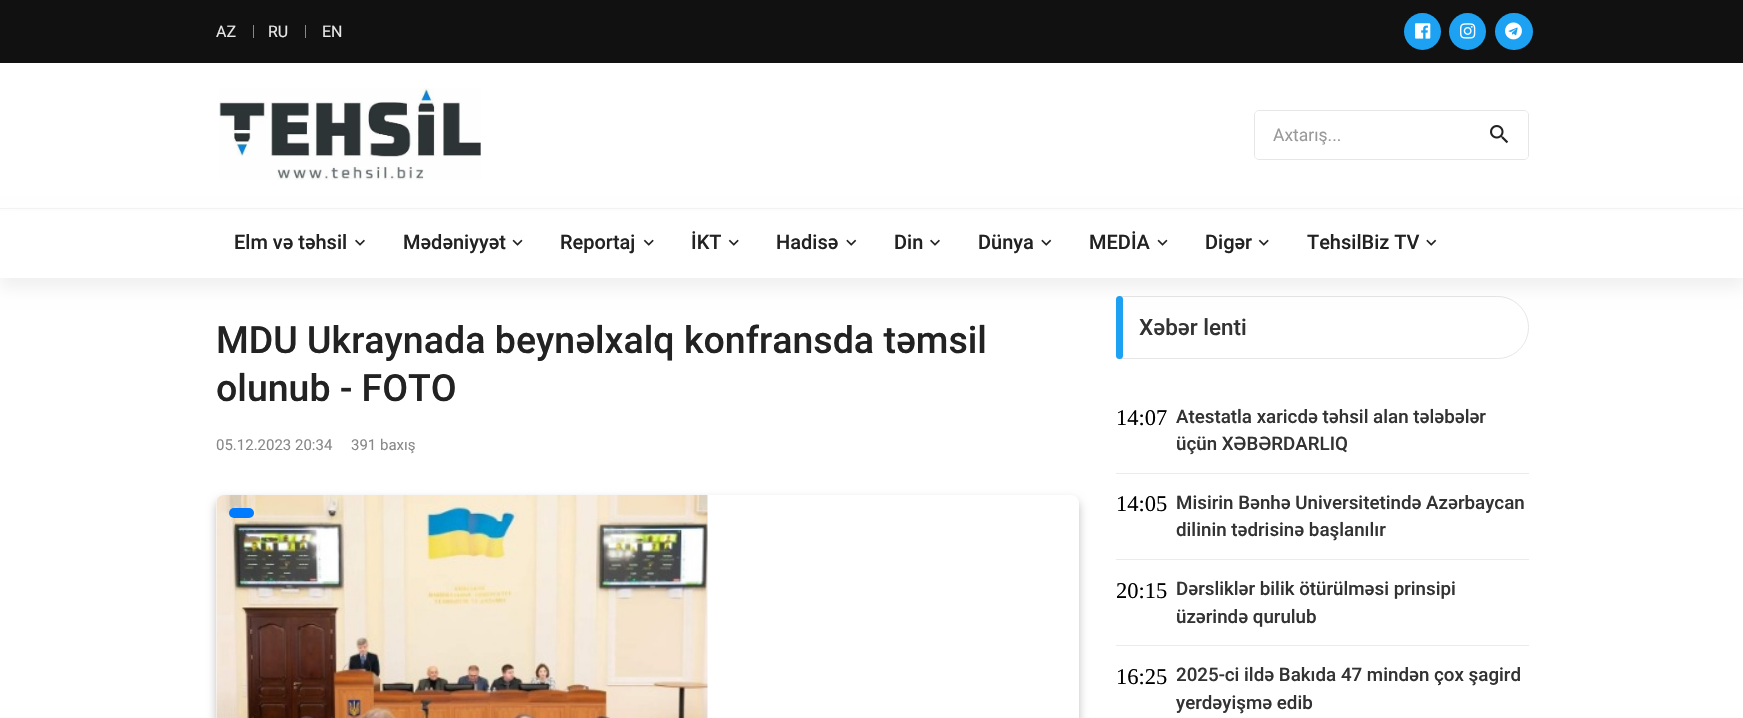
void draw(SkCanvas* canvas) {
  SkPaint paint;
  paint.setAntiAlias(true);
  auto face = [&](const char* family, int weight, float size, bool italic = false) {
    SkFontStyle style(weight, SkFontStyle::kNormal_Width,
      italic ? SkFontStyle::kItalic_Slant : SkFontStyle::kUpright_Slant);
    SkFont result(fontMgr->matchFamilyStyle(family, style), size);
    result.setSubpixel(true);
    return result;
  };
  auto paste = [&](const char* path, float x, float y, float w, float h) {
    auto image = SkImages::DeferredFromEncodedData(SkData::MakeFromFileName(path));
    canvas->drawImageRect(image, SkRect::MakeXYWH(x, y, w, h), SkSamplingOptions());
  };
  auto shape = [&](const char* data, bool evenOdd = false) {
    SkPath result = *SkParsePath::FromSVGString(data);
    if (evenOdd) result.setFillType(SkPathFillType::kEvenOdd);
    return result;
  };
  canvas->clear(0xffffffff);
  {
    const struct { float x, y, w, h; SkColor color; } items[] = {
      {0, 0, 1743, 63, 0xff111111},
      {253, 25, 1, 13, 0xff888888},
      {305, 25, 1, 13, 0xff888888},
    };
    for (auto [x, y, w, h, color] : items) {
      paint.setColor(color);
      canvas->drawRect(SkRect::MakeXYWH(x, y, w, h), paint);
    }
  }
  paint.setColor(0xff1da1f2);
  canvas->drawCircle(1422.5f, 31.5f, 18.5f, paint);
  paste("img/1.png", 1415, 23, 16, 16);
  canvas->drawCircle(1467.5f, 31.5f, 18.5f, paint);
  paste("img/2.png", 1460, 23, 16, 16);
  canvas->drawRoundRect(SkRect::MakeXYWH(1495, 13, 38, 37), 18.5f, 18.5f, paint);
  paste("img/3.png", 1505, 22, 17, 18);
  paste("img/4.png", 219, 88, 262, 92);
  paint.setStroke(true);
  paint.setStrokeWidth(1);
  paint.setColor(0xffe6e6e6);
  canvas->drawRoundRect(SkRect::MakeXYWH(1254.5f, 110.5f, 274, 49), 4.5f, 4.5f, paint);
  paint.setStroke(false);
  paint.setColor(0xffffffff);
  canvas->drawRoundRect(SkRect::MakeXYWH(1255, 111, 273, 48), 4, 4, paint);
  paste("img/5.png", 1490, 125, 19, 19);
  paint.setStroke(true);
  paint.setColor(0xffe6e6e6);
  canvas->drawPath(shape("M1120 296.5H1497.5C1514.5 296.5 1528.5 310.5 1528.5 327.5C1528.5 344.5 1514.5 358.5 1497.5 358.5H1120C1118 358.5 1116.5 357 1116.5 355V300C1116.5 298 1118 296.5 1120 296.5Z"), paint);
  paint.setStroke(false);
  paint.setColor(0xff1da1f2);
  canvas->drawRoundRect(SkRect::MakeXYWH(1116, 296, 7, 63), 3.5f, 3.5f, paint);
  paint.setColor(0x0f000000);
  paint.setMaskFilter(SkMaskFilter::MakeBlur(kNormal_SkBlurStyle, 7.5f));
  canvas->drawRect(SkRect::MakeXYWH(0, 218, 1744, 70), paint);
  paint.setMaskFilter(nullptr);
  paint.setColor(0xffffffff);
  canvas->drawRect(SkRect::MakeXYWH(0, 211, 1743, 67), paint);
  paint.setColor(0xfff2f2f2);
  canvas->drawRect(SkRect::MakeXYWH(0, 208, 1743, 1), paint);
  paste("img/6.png", 355, 239, 10, 7);
  paste("img/7.png", 512, 239, 11, 7);
  paste("img/8.png", 643, 239, 11, 7);
  paste("img/8.png", 728, 239, 11, 7);
  paste("img/9.png", 846, 239, 11, 7);
  paste("img/6.png", 930, 239, 10, 7);
  paste("img/9.png", 1041, 239, 11, 7);
  paste("img/7.png", 1157, 239, 11, 7);
  paste("img/8.png", 1258, 239, 11, 7);
  paste("img/9.png", 1426, 239, 11, 7);
  canvas->save();
  canvas->clipPath(shape("M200 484H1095V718H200ZM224 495H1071C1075.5 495 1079 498.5 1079 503V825C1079 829.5 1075.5 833 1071 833H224C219.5 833 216 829.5 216 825V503C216 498.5 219.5 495 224 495Z", true), true);
  paint.setColor(0x40000000);
  paint.setMaskFilter(SkMaskFilter::MakeBlur(kNormal_SkBlurStyle, 5));
  canvas->drawRoundRect(SkRect::MakeXYWH(216, 500, 863, 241), 8, 8, paint);
  paint.setMaskFilter(nullptr);
  canvas->restore();
  paste("img/10.png", 216, 495, 492, 223);
  paint.setColor(0xff007bff);
  canvas->drawRoundRect(SkRect::MakeXYWH(229, 508, 25, 10), 5, 5, paint);
  {
    const struct { float x, y, w, h; SkColor color; } items[] = {
      {1116, 473, 413, 1, 0xffebebeb},
      {1116, 559, 413, 1, 0xffebebeb},
      {1116, 645, 413, 1, 0xffebebeb},
    };
    for (auto [x, y, w, h, color] : items) {
      paint.setColor(color);
      canvas->drawRect(SkRect::MakeXYWH(x, y, w, h), paint);
    }
  }
  auto f0 = face("Roboto", 400, 16);
  paint.setColor(0xffe8e8e8);
  {
    const struct { const char* s; float x, y; } items[] = {
      {"AZ", 216, 37},
      {"RU", 268, 37},
      {"EN", 322, 37},
    };
    for (auto [s, x, y] : items) {
      canvas->drawString(s, x, y, f0, paint);
    }
  }
  auto f1 = face("Roboto", 400, 17.5f);
  paint.setColor(0xff999999);
  canvas->drawString("Axtarış...", 1273, 141, f1, paint);
  auto f2 = face("Roboto", 500, 20);
  paint.setColor(0xff222222);
  {
    const struct { const char* s; float x, y; } items[] = {
      {"Elm və təhsil", 234, 249},
      {"Mədəniyyət", 403, 249},
      {"Reportaj", 560, 249},
      {"İKT", 691, 249},
      {"Hadisə", 776, 249},
      {"Din", 894, 249},
      {"Dünya", 978, 249},
      {"MEDİA", 1089, 249},
      {"Digər", 1205, 249},
      {"TehsilBiz TV", 1307, 249},
    };
    for (auto [s, x, y] : items) {
      canvas->drawString(s, x, y, f2, paint);
    }
  }
  auto f3 = face("Roboto", 500, 37.5f);
  canvas->drawString("MDU Ukraynada beynəlxalq konfransda təmsil", 216, 353, f3, paint);
  canvas->drawString("olunub - FOTO", 216, 401, f3, paint);
  auto f4 = face("Roboto", 400, 15);
  paint.setColor(0xff888888);
  canvas->drawString("05.12.2023 20:34", 216, 450, f4, paint);
  canvas->drawString("391 baxış", 351, 450, f4, paint);
  auto f5 = face("Roboto", 500, 22.5f);
  paint.setColor(0xff333333);
  canvas->drawString("Xəbər lenti", 1139, 335, f5, paint);
  auto f6 = face("Liberation Serif", 400, 22.5f);
  paint.setColor(0xff000000);
  canvas->drawString("14:07", 1116, 425, f6, paint);
  auto f7 = face("Roboto", 500, 18.75f);
  paint.setColor(0xff333333);
  canvas->drawString("Atestatla xaricdə təhsil alan tələbələr", 1176, 423, f7, paint);
  canvas->drawString("üçün XƏBƏRDARLIQ", 1176, 450, f7, paint);
  paint.setColor(0xff000000);
  canvas->drawString("14:05", 1116, 511, f6, paint);
  paint.setColor(0xff333333);
  canvas->drawString("Misirin Bənhə Universitetində Azərbaycan", 1176, 509, f7, paint);
  canvas->drawString("dilinin tədrisinə başlanılır", 1176, 536, f7, paint);
  paint.setColor(0xff000000);
  canvas->drawString("20:15", 1116, 598, f6, paint);
  paint.setColor(0xff333333);
  canvas->drawString("Dərsliklər bilik ötürülməsi prinsipi", 1176, 595, f7, paint);
  canvas->drawString("üzərində qurulub", 1176, 623, f7, paint);
  paint.setColor(0xff000000);
  canvas->drawString("16:25", 1116, 684, f6, paint);
  paint.setColor(0xff333333);
  canvas->drawString("2025-ci ildə Bakıda 47 mindən çox şagird", 1176, 681, f7, paint);
  canvas->drawString("yerdəyişmə edib", 1176, 709, f7, paint);
}
